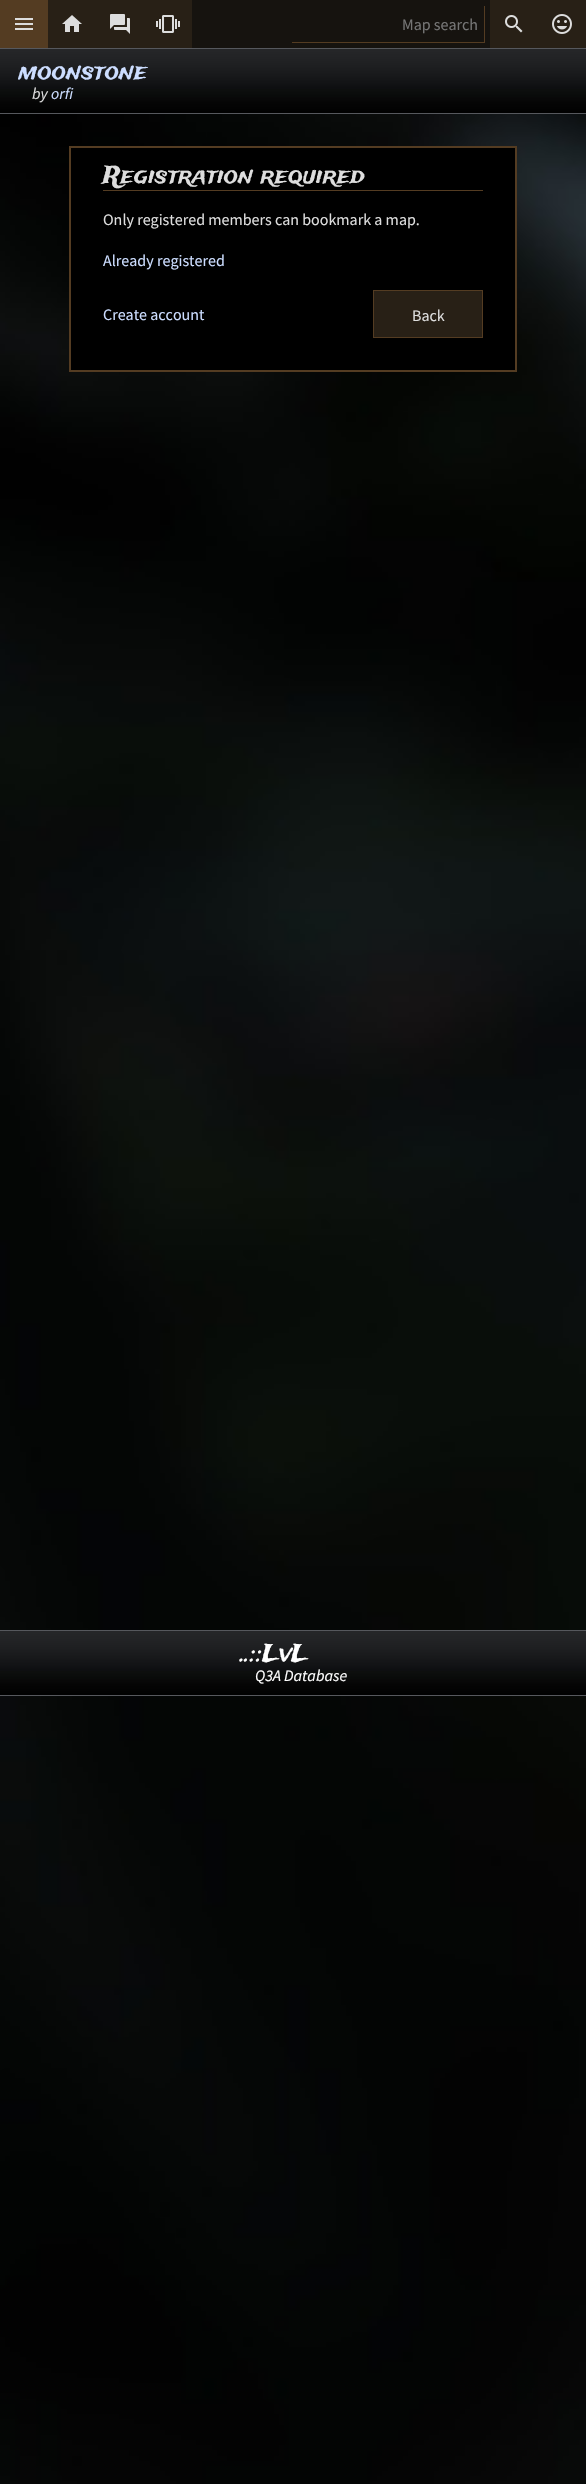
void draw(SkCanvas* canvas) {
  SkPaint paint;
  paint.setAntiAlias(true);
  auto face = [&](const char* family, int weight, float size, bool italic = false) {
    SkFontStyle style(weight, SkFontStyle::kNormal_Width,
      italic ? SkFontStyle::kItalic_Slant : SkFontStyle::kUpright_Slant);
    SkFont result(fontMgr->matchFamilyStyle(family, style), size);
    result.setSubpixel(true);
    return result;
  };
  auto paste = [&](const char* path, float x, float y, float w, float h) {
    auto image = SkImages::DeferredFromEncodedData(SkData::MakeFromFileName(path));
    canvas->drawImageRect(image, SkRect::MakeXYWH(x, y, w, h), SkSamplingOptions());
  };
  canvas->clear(0xffffffff);
  paint.setColor(0xff16130f);
  canvas->drawRect(SkRect::MakeXYWH(192, 0, 298, 48), paint);
  paint.setColor(0xff543c22);
  canvas->drawRect(SkRect::MakeXYWH(0, 0, 48, 48), paint);
  paste("img/1.png", 15, 18, 18, 12);
  paint.setColor(0xff282016);
  canvas->drawRect(SkRect::MakeXYWH(48, 0, 144, 48), paint);
  paste("img/2.png", 62, 15, 20, 17);
  canvas->drawRect(SkRect::MakeXYWH(490, 0, 96, 48), paint);
  paste("img/3.png", 505, 15, 18, 18);
  paste("img/4.png", 552, 14, 20, 20);
  paste("img/5.png", 110, 14, 20, 20);
  paste("img/6.png", 156, 15, 24, 18);
  paint.setColor(0xff543c22);
  canvas->drawRect(SkRect::MakeXYWH(484, 6, 1, 37), paint);
  canvas->drawRect(SkRect::MakeXYWH(292, 42, 193, 1), paint);
  paste("img/7.png", 0, 49, 586, 64);
  paint.setColor(0xff56585d);
  canvas->drawRect(SkRect::MakeXYWH(0, 48, 586, 1), paint);
  canvas->drawRect(SkRect::MakeXYWH(0, 113, 586, 1), paint);
  paste("img/8.png", 0, 114, 586, 2370);
  paint.setColor(0xff000000);
  canvas->drawRect(SkRect::MakeXYWH(70, 147, 446, 224), paint);
  paint.setStroke(true);
  paint.setStrokeWidth(2);
  paint.setColor(0xff543c22);
  canvas->drawRect(SkRect::MakeXYWH(70, 147, 446, 224), paint);
  paint.setStroke(false);
  canvas->drawRect(SkRect::MakeXYWH(103, 190, 380, 1), paint);
  paint.setColor(0xff282016);
  canvas->drawRect(SkRect::MakeXYWH(373.5f, 290.5f, 109, 47), paint);
  paint.setStroke(true);
  paint.setStrokeWidth(1);
  paint.setColor(0xff543c22);
  canvas->drawRect(SkRect::MakeXYWH(373.5f, 290.5f, 109, 47), paint);
  paste("img/7.png", 0, 1631, 586, 64);
  paint.setStroke(false);
  paint.setColor(0xff56585d);
  canvas->drawRect(SkRect::MakeXYWH(0, 1630, 586, 1), paint);
  canvas->drawRect(SkRect::MakeXYWH(0, 1695, 586, 1), paint);
  auto f0 = face("Source Sans Pro", 400, 16);
  paint.setColor(0xff757575);
  canvas->drawString("Map search", 402, 30, f0, paint);
  auto f1 = face("Trade Winds", 400, 24);
  paint.setColor(0xffccddff);
  canvas->drawString("moonstone", 18, 79, f1, paint);
  auto f2 = face("Source Sans Pro", 400, 16, true);
  paint.setColor(0xffdddddd);
  canvas->drawString("by", 32, 99, f2, paint);
  paint.setColor(0xffccddff);
  canvas->drawString("orfi", 51, 99, f2, paint);
  paint.setColor(0xffdddddd);
  canvas->drawString("Registration required", 103, 183, f1, paint);
  canvas->drawString("Only registered members can bookmark a map.", 103, 225, f0, paint);
  paint.setColor(0xffccddff);
  canvas->drawString("Already registered", 103, 266, f0, paint);
  canvas->drawString("Create account", 103, 320, f0, paint);
  paint.setColor(0xffdddddd);
  canvas->drawString("Back", 412, 321, f0, paint);
  paint.setColor(0xffffffff);
  canvas->drawString("..::LvL", 241, 1661, f1, paint);
  canvas->drawString("Q3A Database", 255, 1681, f2, paint);
}
